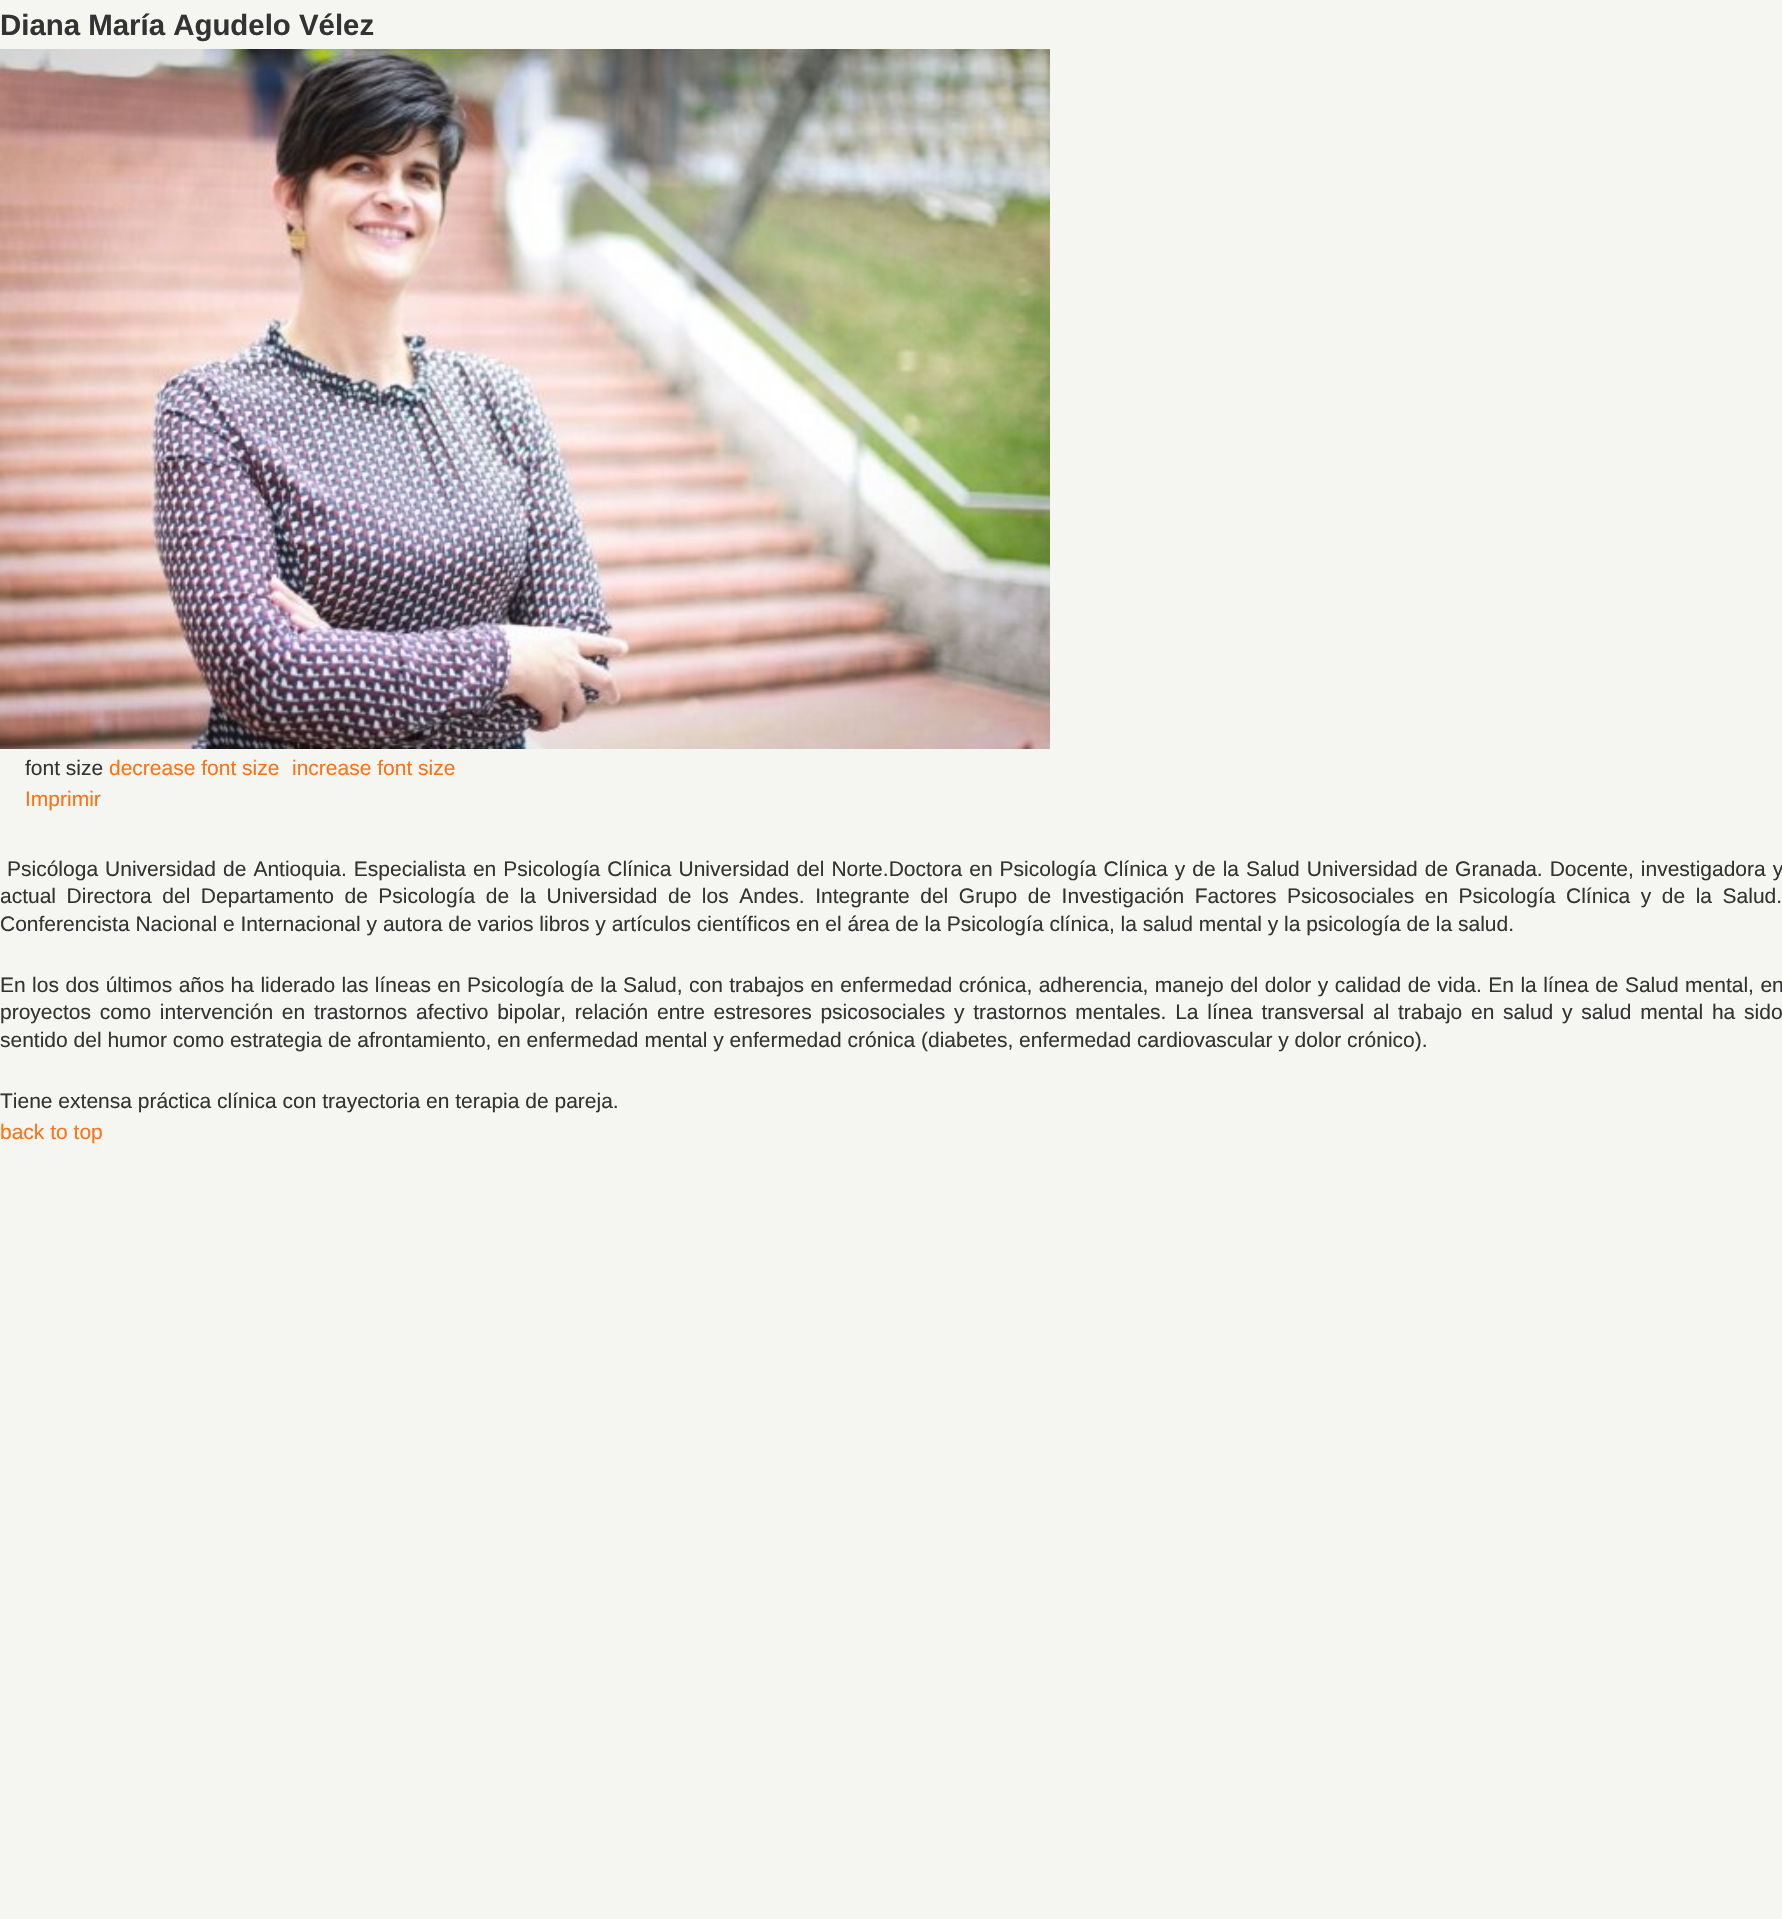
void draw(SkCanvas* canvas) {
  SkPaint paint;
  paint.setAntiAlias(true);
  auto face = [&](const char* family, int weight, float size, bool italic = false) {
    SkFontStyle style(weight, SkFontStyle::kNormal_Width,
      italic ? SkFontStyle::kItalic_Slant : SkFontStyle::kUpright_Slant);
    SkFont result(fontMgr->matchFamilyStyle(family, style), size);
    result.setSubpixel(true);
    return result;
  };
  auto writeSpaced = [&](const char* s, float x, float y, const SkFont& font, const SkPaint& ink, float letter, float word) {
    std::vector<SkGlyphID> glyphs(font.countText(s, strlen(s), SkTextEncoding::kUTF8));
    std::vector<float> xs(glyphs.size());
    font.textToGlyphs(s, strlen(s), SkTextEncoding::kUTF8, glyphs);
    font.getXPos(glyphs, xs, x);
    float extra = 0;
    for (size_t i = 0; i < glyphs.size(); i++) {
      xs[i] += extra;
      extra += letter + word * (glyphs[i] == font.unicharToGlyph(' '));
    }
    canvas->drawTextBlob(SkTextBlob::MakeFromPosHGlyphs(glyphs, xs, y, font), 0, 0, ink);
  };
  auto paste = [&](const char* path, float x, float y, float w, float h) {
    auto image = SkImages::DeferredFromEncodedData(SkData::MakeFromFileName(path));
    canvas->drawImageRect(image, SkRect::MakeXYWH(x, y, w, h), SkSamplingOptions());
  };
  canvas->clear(0xfff5f5f2);
  paste("img/1.png", 0, 49, 1050, 700);
  auto f0 = face("Liberation Sans", 700, 29.4f);
  paint.setColor(0xff333333);
  canvas->drawString("Diana María Agudelo Vélez", 0, 35, f0, paint);
  auto f1 = face("Liberation Sans", 400, 21);
  canvas->drawString("font size", 25, 775, f1, paint);
  paint.setColor(0xfffc7215);
  {
    const struct { const char* s; float x, y; } items[] = {
      {"decrease font size", 109, 775},
      {"increase font size", 292, 775},
      {"Imprimir", 25, 806},
    };
    for (auto [s, x, y] : items) {
      canvas->drawString(s, x, y, f1, paint);
    }
  }
  paint.setColor(0xff333333);
  writeSpaced("Psicóloga Universidad de Antioquia. Especialista en Psicología Clínica Universidad del Norte.Doctora en Psicología Clínica y de la Salud Universidad de Granada. Docente, investigadora y", 7, 876, f1, paint, 0, 1.2f);
  writeSpaced("actual Directora del Departamento de Psicología de la Universidad de los Andes. Integrante del Grupo de Investigación Factores Psicosociales en Psicología Clínica y de la Salud.", 0, 903, f1, paint, 0, 4.7f);
  canvas->drawString("Conferencista Nacional e Internacional y autora de varios libros y artículos científicos en el área de la Psicología clínica, la salud mental y la psicología de la salud.", 0, 931, f1, paint);
  writeSpaced("En los dos últimos años ha liderado las líneas en Psicología de la Salud, con trabajos en enfermedad crónica, adherencia, manejo del dolor y calidad de vida. En la línea de Salud mental, en", 0, 992, f1, paint, 0, 0.6f);
  writeSpaced("proyectos como intervención en trastornos afectivo bipolar, relación entre estresores psicosociales y trastornos mentales. La línea transversal al trabajo en salud y salud mental ha sido", 0, 1019, f1, paint, 0, 2.9f);
  canvas->drawString("sentido del humor como estrategia de afrontamiento, en enfermedad mental y enfermedad crónica (diabetes, enfermedad cardiovascular y dolor crónico).", 0, 1047, f1, paint);
  canvas->drawString("Tiene extensa práctica clínica con trayectoria en terapia de pareja.", 0, 1108, f1, paint);
  paint.setColor(0xfffc7215);
  canvas->drawString("back to top", 0, 1139, f1, paint);
}
